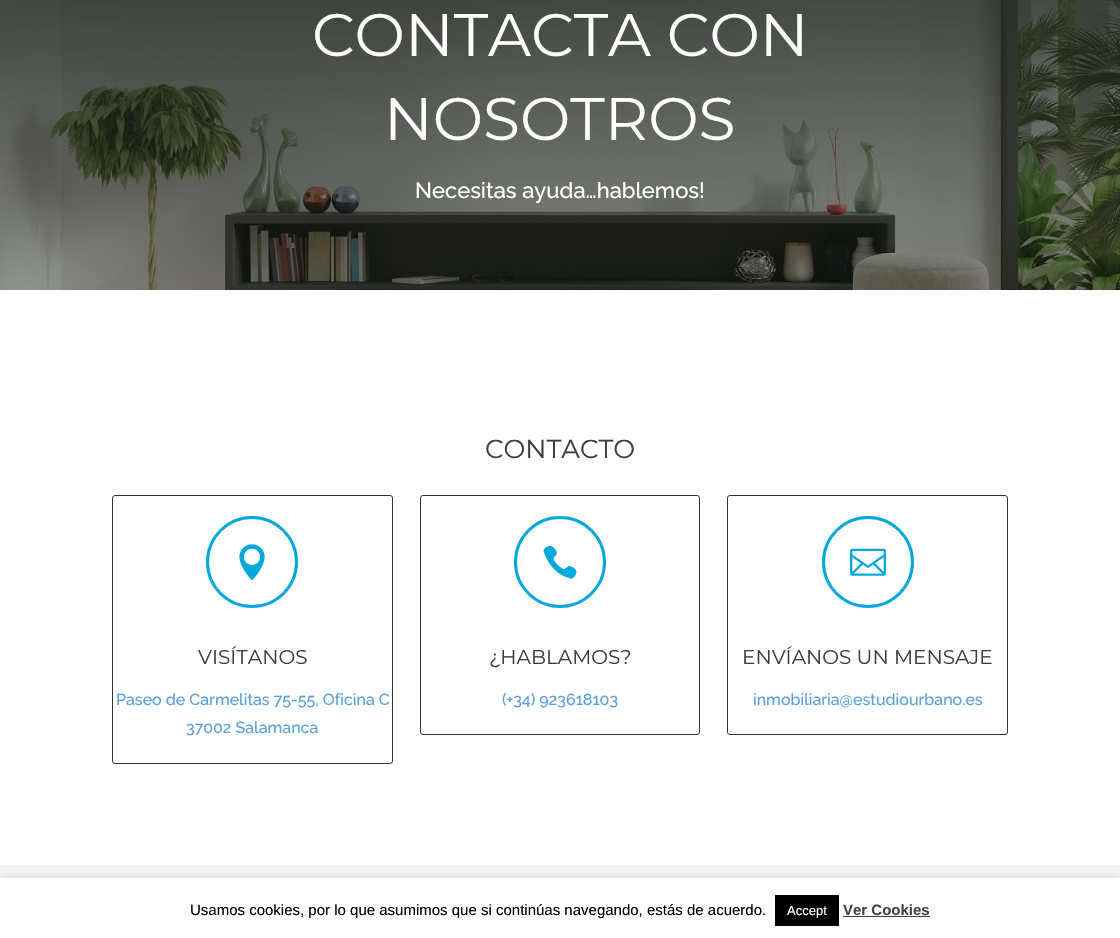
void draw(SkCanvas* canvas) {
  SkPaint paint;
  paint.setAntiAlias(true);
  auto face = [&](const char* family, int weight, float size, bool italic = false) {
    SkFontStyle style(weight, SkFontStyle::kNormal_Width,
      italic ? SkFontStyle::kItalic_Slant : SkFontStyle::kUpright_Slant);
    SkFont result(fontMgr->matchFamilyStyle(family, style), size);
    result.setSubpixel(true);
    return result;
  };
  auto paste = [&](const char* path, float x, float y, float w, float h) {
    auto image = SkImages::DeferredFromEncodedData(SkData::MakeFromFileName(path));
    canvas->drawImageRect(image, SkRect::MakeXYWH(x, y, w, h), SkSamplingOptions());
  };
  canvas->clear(0xffffffff);
  paste("img/1.png", 0, 0, 1120, 290);
  paint.setStroke(true);
  paint.setStrokeWidth(1);
  paint.setColor(0xff333333);
  canvas->drawRoundRect(SkRect::MakeXYWH(112.5f, 495.5f, 280, 268), 2.5f, 2.5f, paint);
  paint.setStrokeWidth(3);
  paint.setColor(0xff00a8dc);
  canvas->drawCircle(252, 562, 44.5f, paint);
  paste("img/2.png", 239, 544, 26, 37);
  paint.setStrokeWidth(1);
  paint.setColor(0xff333333);
  canvas->drawRoundRect(SkRect::MakeXYWH(420.5f, 495.5f, 279, 239), 2.5f, 2.5f, paint);
  paint.setStrokeWidth(3);
  paint.setColor(0xff00a8dc);
  canvas->drawCircle(560, 562, 44.5f, paint);
  paste("img/3.png", 543, 545, 34, 34);
  paint.setStrokeWidth(1);
  paint.setColor(0xff333333);
  canvas->drawRoundRect(SkRect::MakeXYWH(727.5f, 495.5f, 280, 239), 2.5f, 2.5f, paint);
  paint.setStrokeWidth(3);
  paint.setColor(0xff00a8dc);
  canvas->drawCircle(868, 562, 44.5f, paint);
  paste("img/4.png", 850, 548, 36, 28);
  paint.setStroke(false);
  paint.setColor(0xfff4f4f4);
  canvas->drawRect(SkRect::MakeXYWH(0, 865, 1120, 13), paint);
  paint.setColor(0x4dacabab);
  paint.setMaskFilter(SkMaskFilter::MakeBlur(kNormal_SkBlurStyle, 5));
  canvas->drawRect(SkRect::MakeXYWH(0, 877, 1120, 60), paint);
  paint.setMaskFilter(nullptr);
  {
    const struct { float x, y, w, h; SkColor color; } items[] = {
      {0, 878, 1120, 60, 0xffffffff},
      {775, 895, 64, 31, 0xff000000},
      {843, 916, 87, 1, 0xff444444},
    };
    for (auto [x, y, w, h, color] : items) {
      paint.setColor(color);
      canvas->drawRect(SkRect::MakeXYWH(x, y, w, h), paint);
    }
  }
  auto f0 = face("Montserrat", 400, 60);
  paint.setColor(0xffffffff);
  canvas->drawString("CONTACTA CON", 312, 56, f0, paint);
  canvas->drawString("NOSOTROS", 384, 140, f0, paint);
  auto f1 = face("Raleway", 500, 22);
  canvas->drawString("Necesitas ayuda…hablemos!", 415, 198, f1, paint);
  auto f2 = face("Montserrat", 400, 26);
  paint.setColor(0xff3c3c3b);
  canvas->drawString("CONTACTO", 485, 458, f2, paint);
  auto f3 = face("Montserrat", 400, 20);
  canvas->drawString("VISÍTANOS", 198, 664, f3, paint);
  auto f4 = face("Raleway", 500, 16);
  paint.setColor(0xff59a0db);
  canvas->drawString("Paseo de Carmelitas 75-55, Oficina C", 116, 705, f4, paint);
  canvas->drawString("37002 Salamanca", 186, 733, f4, paint);
  paint.setColor(0xff3c3c3b);
  canvas->drawString("¿HABLAMOS?", 489, 664, f3, paint);
  paint.setColor(0xff59a0db);
  canvas->drawString("(+34) 923618103", 502, 705, f4, paint);
  paint.setColor(0xff3c3c3b);
  canvas->drawString("ENVÍANOS UN MENSAJE", 742, 664, f3, paint);
  paint.setColor(0xff59a0db);
  canvas->drawString("inmobiliaria@estudiourbano.es", 753, 705, f4, paint);
  auto f5 = face("Liberation Sans", 400, 15);
  paint.setColor(0xff000000);
  canvas->drawString("Usamos cookies, por lo que asumimos que si continúas navegando, estás de acuerdo.", 190, 915, f5, paint);
  auto f6 = face("Liberation Sans", 400, 13);
  paint.setColor(0xffffffff);
  canvas->drawString("Accept", 787, 915, f6, paint);
  auto f7 = face("Liberation Sans", 700, 15);
  paint.setColor(0xff444444);
  canvas->drawString("Ver Cookies", 843, 915, f7, paint);
}
